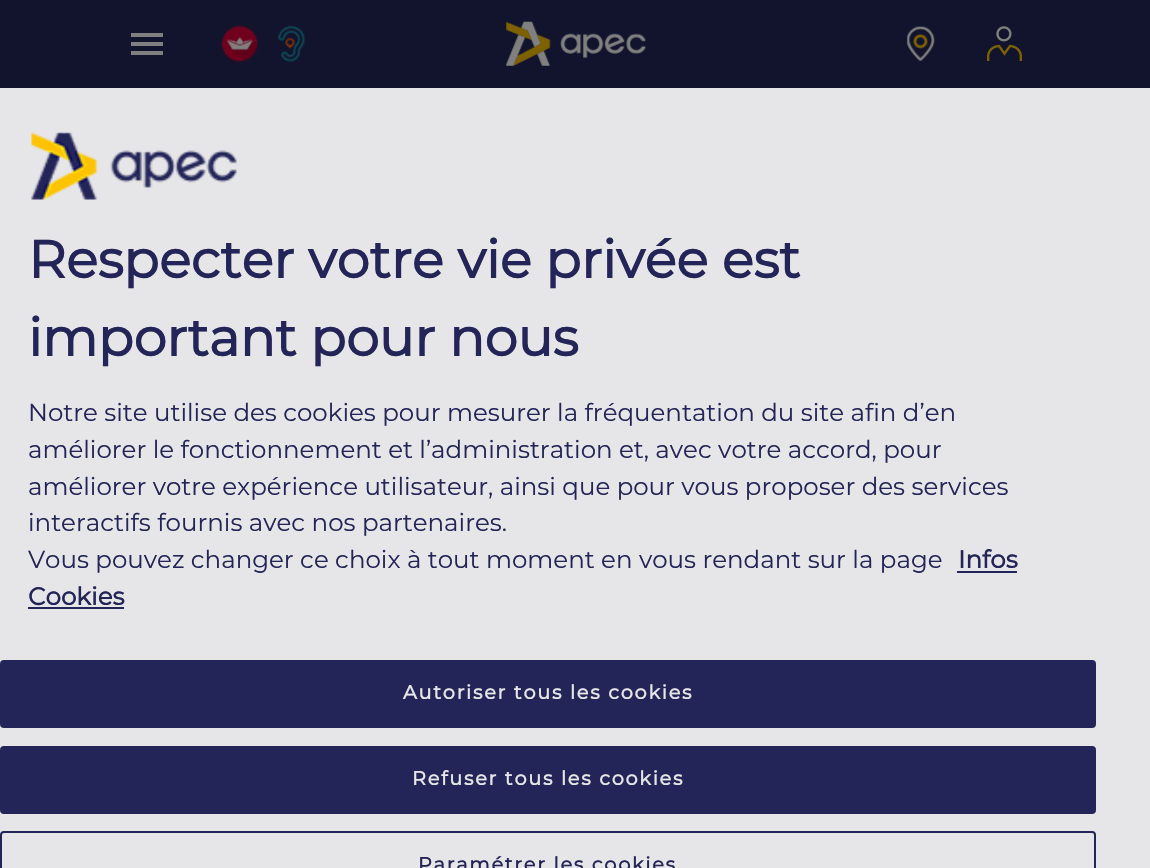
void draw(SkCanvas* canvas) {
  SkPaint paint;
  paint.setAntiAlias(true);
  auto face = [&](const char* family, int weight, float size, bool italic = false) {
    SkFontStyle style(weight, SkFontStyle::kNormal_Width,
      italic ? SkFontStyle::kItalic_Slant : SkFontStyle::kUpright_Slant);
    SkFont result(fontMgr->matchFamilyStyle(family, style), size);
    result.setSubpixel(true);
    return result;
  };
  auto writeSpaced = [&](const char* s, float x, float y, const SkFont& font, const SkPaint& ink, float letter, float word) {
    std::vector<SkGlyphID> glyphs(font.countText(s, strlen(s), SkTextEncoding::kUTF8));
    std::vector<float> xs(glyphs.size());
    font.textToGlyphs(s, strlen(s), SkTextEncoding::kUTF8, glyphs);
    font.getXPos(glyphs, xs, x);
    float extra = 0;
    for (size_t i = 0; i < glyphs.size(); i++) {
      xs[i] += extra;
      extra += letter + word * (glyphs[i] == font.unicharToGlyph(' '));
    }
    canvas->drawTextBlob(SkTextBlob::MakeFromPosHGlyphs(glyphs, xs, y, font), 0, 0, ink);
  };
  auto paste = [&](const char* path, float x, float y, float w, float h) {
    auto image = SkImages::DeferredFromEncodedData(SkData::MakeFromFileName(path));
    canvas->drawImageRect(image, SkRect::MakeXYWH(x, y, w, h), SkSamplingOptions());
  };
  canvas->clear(0xff12132c);
  paste("img/1.png", 506, 21, 140, 45);
  {
    const struct { float x, y, w, h; SkColor color; } items[] = {
      {131, 33, 32, 4, 0xff808080},
      {131, 42, 32, 4, 0xff808080},
      {131, 51, 32, 4, 0xff808080},
    };
    for (auto [x, y, w, h, color] : items) {
      paint.setColor(color);
      canvas->drawRect(SkRect::MakeXYWH(x, y, w, h), paint);
    }
  }
  paste("img/2.png", 222, 25, 36, 37);
  paste("img/3.png", 278, 25, 28, 37);
  paste("img/4.png", 907, 26, 28, 35);
  paste("img/5.png", 987, 26, 35, 35);
  paint.setColor(0xffe6e5e7);
  canvas->drawRect(SkRect::MakeXYWH(0, 88, 1150, 780), paint);
  paste("img/6.png", 31, 132, 206, 68);
  paint.setColor(0xff232558);
  canvas->drawRect(SkRect::MakeXYWH(957, 571, 60, 2), paint);
  canvas->drawRect(SkRect::MakeXYWH(28, 607, 96, 2), paint);
  canvas->drawRoundRect(SkRect::MakeXYWH(1, 661, 1094, 66), 3, 3, paint);
  paint.setStroke(true);
  paint.setStrokeWidth(2);
  canvas->drawRoundRect(SkRect::MakeXYWH(1, 661, 1094, 66), 3, 3, paint);
  paint.setStroke(false);
  canvas->drawRoundRect(SkRect::MakeXYWH(1, 747, 1094, 66), 3, 3, paint);
  paint.setStroke(true);
  canvas->drawRoundRect(SkRect::MakeXYWH(1, 747, 1094, 66), 3, 3, paint);
  canvas->drawRoundRect(SkRect::MakeXYWH(1, 832, 1094, 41), 3, 3, paint);
  auto f0 = face("Montserrat", 700, 52.5f);
  paint.setStroke(false);
  canvas->drawString("Respecter votre vie privée est", 28, 278, f0, paint);
  canvas->drawString("important pour nous", 28, 356, f0, paint);
  auto f1 = face("Montserrat", 400, 24.5f);
  {
    const struct { const char* s; float x, y; } items[] = {
      {"Notre site utilise des cookies pour mesurer la fréquentation du site afin d’en", 28, 421},
      {"améliorer le fonctionnement et l’administration et, avec votre accord, pour", 28, 458},
      {"améliorer votre expérience utilisateur, ainsi que pour vous proposer des services", 28, 495},
      {"interactifs fournis avec nos partenaires.", 28, 531},
      {"Vous pouvez changer ce choix à tout moment en vous rendant sur la page", 28, 568},
    };
    for (auto [s, x, y] : items) {
      canvas->drawString(s, x, y, f1, paint);
    }
  }
  auto f2 = face("Montserrat", 700, 24.5f);
  canvas->drawString("Infos", 958, 568, f2, paint);
  canvas->drawString("Cookies", 28, 605, f2, paint);
  auto f3 = face("Montserrat", 700, 19.25f);
  paint.setColor(0xffe6e5e7);
  writeSpaced("Autoriser tous les cookies", 403, 699, f3, paint, 1.75f, 0);
  writeSpaced("Refuser tous les cookies", 412, 785, f3, paint, 1.75f, 0);
  paint.setColor(0xff232558);
  writeSpaced("Paramétrer les cookies", 418, 871, f3, paint, 1.75f, 0);
}
